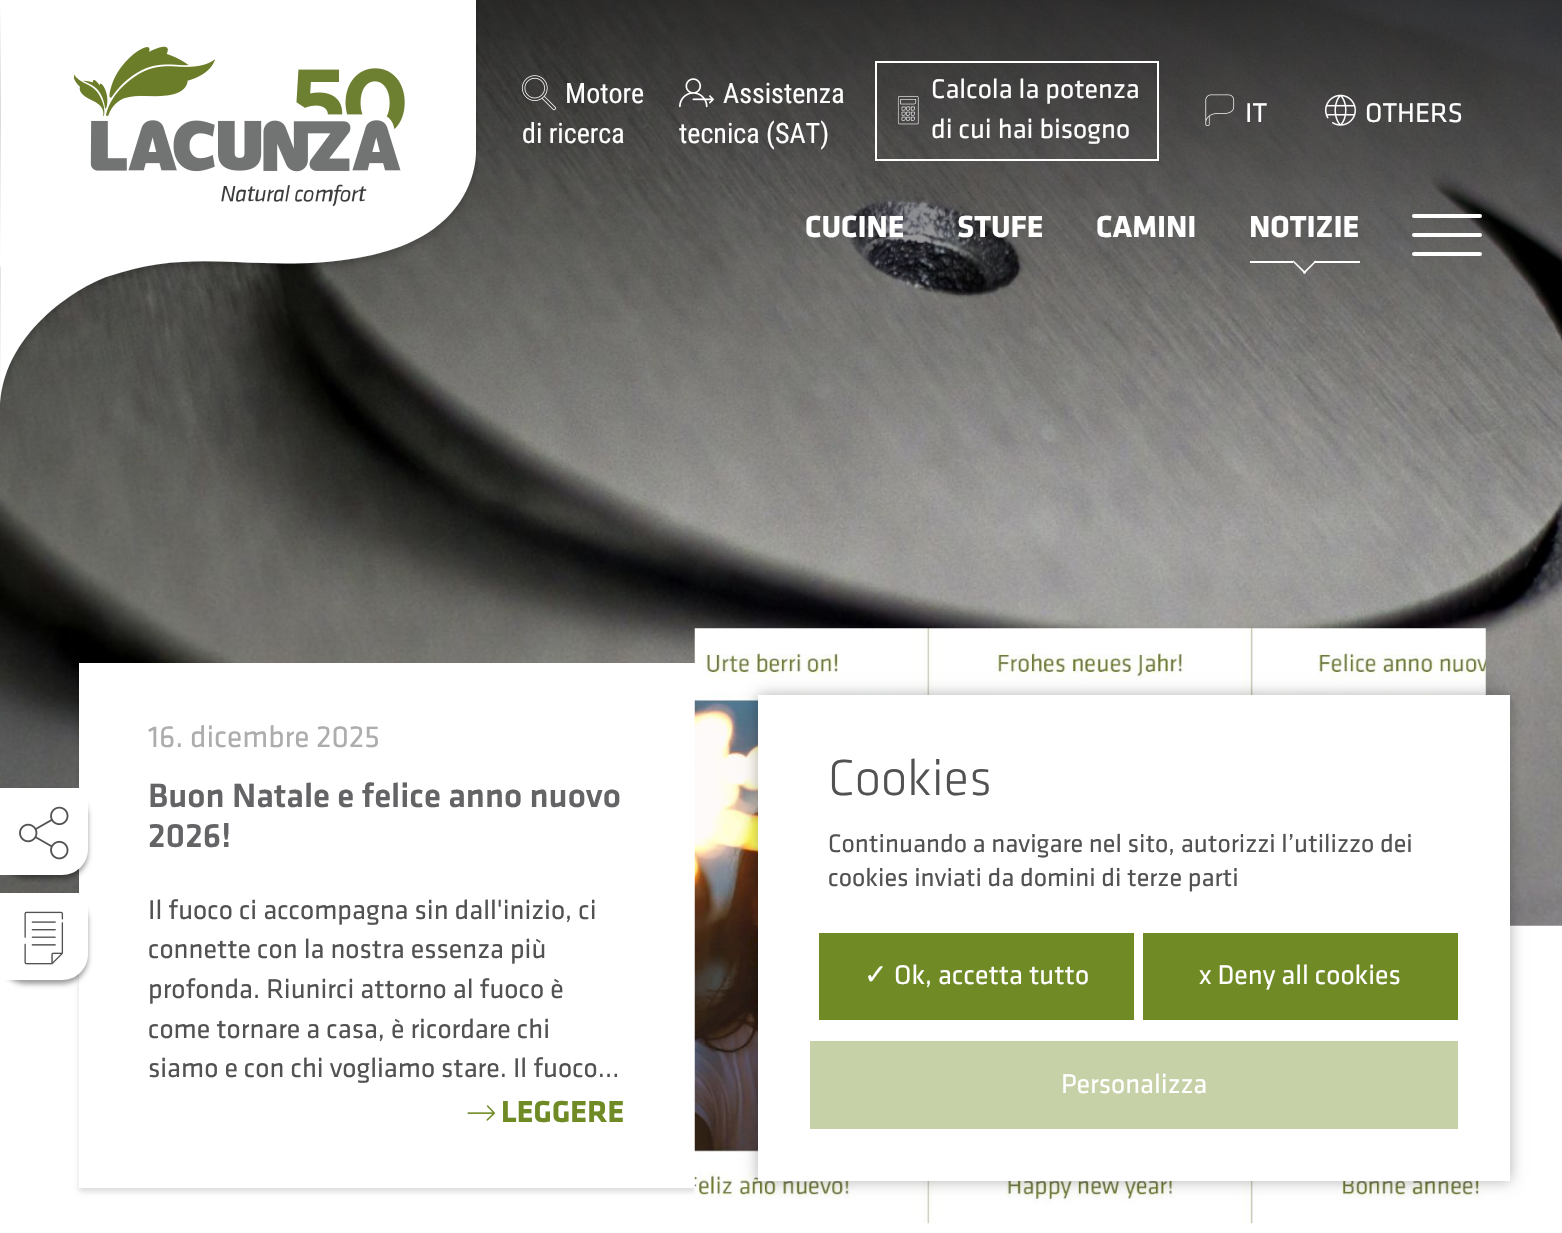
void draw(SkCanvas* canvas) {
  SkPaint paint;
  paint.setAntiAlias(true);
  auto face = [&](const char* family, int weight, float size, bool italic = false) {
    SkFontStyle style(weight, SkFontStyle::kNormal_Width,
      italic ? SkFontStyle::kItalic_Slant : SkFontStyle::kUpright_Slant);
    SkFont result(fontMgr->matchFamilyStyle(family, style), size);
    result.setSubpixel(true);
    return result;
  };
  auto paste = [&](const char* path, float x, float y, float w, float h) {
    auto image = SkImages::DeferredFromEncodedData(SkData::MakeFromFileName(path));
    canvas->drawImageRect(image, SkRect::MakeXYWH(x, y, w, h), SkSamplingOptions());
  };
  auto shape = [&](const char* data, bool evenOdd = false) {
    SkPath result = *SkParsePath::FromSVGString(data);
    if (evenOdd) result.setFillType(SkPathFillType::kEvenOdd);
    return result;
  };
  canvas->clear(0xffffffff);
  paste("img/8.png", 0, 0, 1562, 926);
  paste("img/1.png", 0, 0, 478, 403);
  paste("img/2.png", 74, 46, 331, 161);
  paste("img/3.png", 521, 75, 36, 36);
  paste("img/4.png", 679, 78, 35, 30);
  paint.setStroke(true);
  paint.setStrokeWidth(2);
  paint.setColor(0xffffffff);
  canvas->drawRect(SkRect::MakeXYWH(876, 62, 282, 98), paint);
  paste("img/5.png", 897, 96, 22, 29);
  paste("img/6.png", 1205, 94, 30, 32);
  paste("img/7.png", 1324, 94, 32, 32);
  paint.setStroke(false);
  canvas->drawPath(shape("M1293.5 260.5L1306 272.5L1305 274L1292.5 261.5Z"), paint);
  canvas->drawRect(SkRect::MakeXYWH(1250, 261, 43, 2), paint);
  canvas->drawRect(SkRect::MakeXYWH(1314, 261, 46, 2), paint);
  canvas->drawPath(shape("M1303 272.5L1315.5 260.5L1316.5 261.5L1304 274Z"), paint);
  canvas->drawRoundRect(SkRect::MakeXYWH(1412, 214, 70, 4), 2, 2, paint);
  canvas->drawRoundRect(SkRect::MakeXYWH(1412, 233, 70, 4), 2, 2, paint);
  canvas->drawRoundRect(SkRect::MakeXYWH(1412, 252, 70, 4), 2, 2, paint);
  paint.setColor(0x21000000);
  paint.setMaskFilter(SkMaskFilter::MakeBlur(kNormal_SkBlurStyle, 2.5f));
  canvas->drawRect(SkRect::MakeXYWH(79, 667, 616, 525), paint);
  paint.setMaskFilter(nullptr);
  paint.setColor(0xffffffff);
  canvas->drawRect(SkRect::MakeXYWH(79, 663, 616, 525), paint);
  paste("img/9.png", 467, 1105, 29, 16);
  paste("img/10.png", 694, 628, 792, 596);
  paint.setColor(0x61000000);
  paint.setMaskFilter(SkMaskFilter::MakeBlur(kNormal_SkBlurStyle, 2.5f));
  canvas->drawRoundRect(SkRect::MakeXYWH(0, 791, 88, 88), 26, 26, paint);
  paint.setMaskFilter(nullptr);
  paint.setColor(0xffffffff);
  canvas->drawPath(shape("M0 788H88V849C88 863.5 76.5 875 62 875H0Z"), paint);
  paste("img/11.png", 19, 806, 50, 54);
  paint.setColor(0x61000000);
  paint.setMaskFilter(SkMaskFilter::MakeBlur(kNormal_SkBlurStyle, 2.5f));
  canvas->drawRoundRect(SkRect::MakeXYWH(0, 896, 88, 88), 26, 26, paint);
  paint.setMaskFilter(nullptr);
  paint.setColor(0xffffffff);
  canvas->drawPath(shape("M0 893H88V954C88 968.5 76.5 980 62 980H0Z"), paint);
  paste("img/12.png", 24, 911, 40, 54);
  paint.setColor(0x4d000000);
  paint.setMaskFilter(SkMaskFilter::MakeBlur(kNormal_SkBlurStyle, 7));
  canvas->drawRect(SkRect::MakeXYWH(758, 695, 752, 486), paint);
  paint.setMaskFilter(nullptr);
  {
    const struct { float x, y, w, h; SkColor color; } items[] = {
      {758, 695, 752, 486, 0xffffffff},
      {819, 933, 315, 87, 0xff708b26},
      {1143, 933, 315, 87, 0xff708b26},
      {810, 1041, 648, 88, 0xffc6d1a8},
    };
    for (auto [x, y, w, h, color] : items) {
      paint.setColor(color);
      canvas->drawRect(SkRect::MakeXYWH(x, y, w, h), paint);
    }
  }
  auto f0 = face("Roboto Condensed", 400, 28);
  paint.setColor(0xffffffff);
  {
    const struct { const char* s; float x, y; } items[] = {
      {"Motore", 565, 103},
      {"di ricerca", 522, 143},
      {"Assistenza", 723, 103},
      {"tecnica (SAT)", 679, 143},
    };
    for (auto [s, x, y] : items) {
      canvas->drawString(s, x, y, f0, paint);
    }
  }
  auto f1 = face("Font", 400, 28);
  {
    const struct { const char* s; float x, y; } items[] = {
      {"Calcola la potenza", 931, 98},
      {"di cui hai bisogno", 931, 138},
      {"IT", 1245, 122},
      {"OTHERS", 1365, 122},
    };
    for (auto [s, x, y] : items) {
      canvas->drawString(s, x, y, f1, paint);
    }
  }
  auto f2 = face("Font", 700, 31.5f);
  {
    const struct { const char* s; float x, y; } items[] = {
      {"CUCINE", 805, 237},
      {"STUFE", 957, 237},
      {"CAMINI", 1096, 237},
      {"NOTIZIE", 1249, 237},
    };
    for (auto [s, x, y] : items) {
      canvas->drawString(s, x, y, f2, paint);
    }
  }
  auto f3 = face("Font", 400, 31.5f);
  paint.setColor(0xffadadad);
  canvas->drawString("16. dicembre 2025", 148, 747, f3, paint);
  auto f4 = face("Font", 500, 35);
  paint.setColor(0xff646467);
  canvas->drawString("Buon Natale e felice anno nuovo", 148, 807, f4, paint);
  canvas->drawString("2026!", 148, 847, f4, paint);
  paint.setColor(0xff525252);
  {
    const struct { const char* s; float x, y; } items[] = {
      {"Il fuoco ci accompagna sin dall'inizio, ci", 148, 919},
      {"connette con la nostra essenza più", 148, 958},
      {"profonda. Riunirci attorno al fuoco è", 148, 998},
      {"come tornare a casa, è ricordare chi", 148, 1038},
      {"siamo e con chi vogliamo stare. Il fuoco...", 148, 1077},
    };
    for (auto [s, x, y] : items) {
      canvas->drawString(s, x, y, f1, paint);
    }
  }
  paint.setColor(0xff708b26);
  canvas->drawString("LEGGERE", 501, 1122, f2, paint);
  auto f5 = face("Font", 300, 52.5f);
  paint.setColor(0xff525252);
  canvas->drawString("Cookies", 828, 795, f5, paint);
  auto f6 = face("Font", 400, 26.25f);
  canvas->drawString("Continuando a navigare nel sito, autorizzi l’utilizzo dei", 828, 852, f6, paint);
  canvas->drawString("cookies inviati da domini di terze parti", 828, 886, f6, paint);
  auto f7 = face("DejaVu Sans", 400, 28);
  paint.setColor(0xffffffff);
  canvas->drawString("✓", 864, 984, f7, paint);
  {
    const struct { const char* s; float x, y; } items[] = {
      {"Ok, accetta tutto", 894, 984},
      {"x Deny all cookies", 1199, 984},
      {"Personalizza", 1061, 1093},
    };
    for (auto [s, x, y] : items) {
      canvas->drawString(s, x, y, f1, paint);
    }
  }
}
